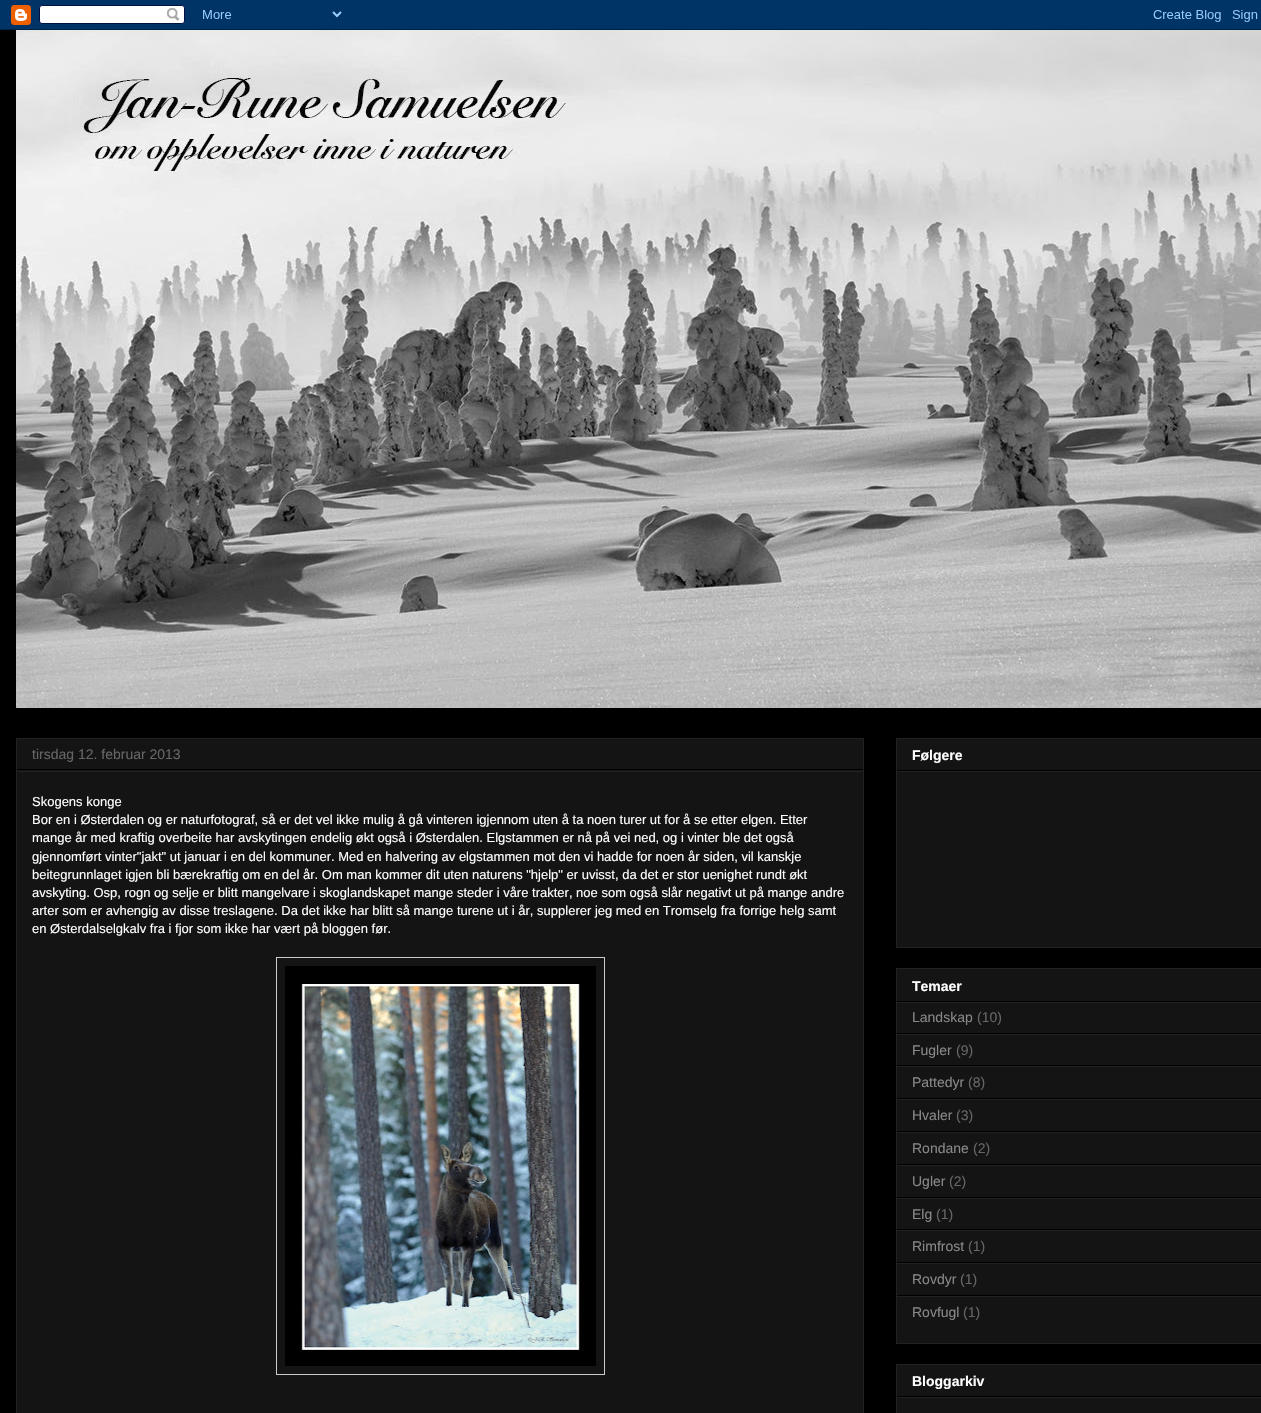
void draw(SkCanvas* canvas) {
  SkPaint paint;
  paint.setAntiAlias(true);
  auto face = [&](const char* family, int weight, float size, bool italic = false) {
    SkFontStyle style(weight, SkFontStyle::kNormal_Width,
      italic ? SkFontStyle::kItalic_Slant : SkFontStyle::kUpright_Slant);
    SkFont result(fontMgr->matchFamilyStyle(family, style), size);
    result.setSubpixel(true);
    return result;
  };
  auto paste = [&](const char* path, float x, float y, float w, float h) {
    auto image = SkImages::DeferredFromEncodedData(SkData::MakeFromFileName(path));
    canvas->drawImageRect(image, SkRect::MakeXYWH(x, y, w, h), SkSamplingOptions());
  };
  canvas->clear(0xff000000);
  paste("img/1.png", 0, 0, 1261, 30);
  paste("img/2.png", 16, 30, 1245, 678);
  paint.setColor(0xff141414);
  canvas->drawRect(SkRect::MakeXYWH(16.5f, 738.5f, 847, 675), paint);
  paint.setStroke(true);
  paint.setStrokeWidth(1);
  paint.setColor(0xff222222);
  canvas->drawRect(SkRect::MakeXYWH(16.5f, 738.5f, 847, 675), paint);
  paint.setStroke(false);
  paint.setColor(0xff000000);
  canvas->drawRect(SkRect::MakeXYWH(17, 769, 846, 1), paint);
  paint.setColor(0xff222222);
  canvas->drawRect(SkRect::MakeXYWH(17, 771, 846, 1), paint);
  paint.setStroke(true);
  paint.setColor(0xffcccccc);
  canvas->drawRect(SkRect::MakeXYWH(276.5f, 957.5f, 328, 417), paint);
  paste("img/3.png", 285, 966, 311, 400);
  paint.setStroke(false);
  paint.setColor(0xff141414);
  canvas->drawRect(SkRect::MakeXYWH(896.5f, 738.5f, 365, 209), paint);
  paint.setStroke(true);
  paint.setColor(0xff222222);
  canvas->drawRect(SkRect::MakeXYWH(896.5f, 738.5f, 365, 209), paint);
  paint.setStroke(false);
  paint.setColor(0xff000000);
  canvas->drawRect(SkRect::MakeXYWH(897, 770, 364, 1), paint);
  paint.setColor(0xff222222);
  canvas->drawRect(SkRect::MakeXYWH(897, 771, 364, 1), paint);
  paint.setColor(0xff141414);
  canvas->drawRect(SkRect::MakeXYWH(896.5f, 968.5f, 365, 375), paint);
  paint.setStroke(true);
  paint.setColor(0xff222222);
  canvas->drawRect(SkRect::MakeXYWH(896.5f, 968.5f, 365, 375), paint);
  paint.setStroke(false);
  {
    const struct { float x, y, w, h; SkColor color; } items[] = {
      {897, 1001, 364, 1, 0xff000000},
      {897, 1002, 364, 1, 0xff222222},
      {897, 1033, 364, 1, 0xff000000},
      {897, 1034, 364, 1, 0xff222222},
      {897, 1065, 364, 1, 0xff000000},
      {897, 1066, 364, 1, 0xff222222},
      {897, 1098, 364, 1, 0xff000000},
      {897, 1099, 364, 1, 0xff222222},
      {897, 1131, 364, 1, 0xff000000},
      {897, 1132, 364, 1, 0xff222222},
      {897, 1164, 364, 1, 0xff000000},
      {897, 1165, 364, 1, 0xff222222},
      {897, 1197, 364, 1, 0xff000000},
      {897, 1198, 364, 1, 0xff222222},
      {897, 1229, 364, 1, 0xff000000},
      {897, 1230, 364, 1, 0xff222222},
      {897, 1262, 364, 1, 0xff000000},
      {897, 1263, 364, 1, 0xff222222},
      {897, 1295, 364, 1, 0xff000000},
      {897, 1296, 364, 1, 0xff222222},
    };
    for (auto [x, y, w, h, color] : items) {
      paint.setColor(color);
      canvas->drawRect(SkRect::MakeXYWH(x, y, w, h), paint);
    }
  }
  paint.setColor(0xff141414);
  canvas->drawRect(SkRect::MakeXYWH(896.5f, 1364.5f, 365, 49), paint);
  paint.setStroke(true);
  paint.setColor(0xff222222);
  canvas->drawRect(SkRect::MakeXYWH(896.5f, 1364.5f, 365, 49), paint);
  paint.setStroke(false);
  paint.setColor(0xff000000);
  canvas->drawRect(SkRect::MakeXYWH(897, 1396, 364, 1), paint);
  paint.setColor(0xff222222);
  canvas->drawRect(SkRect::MakeXYWH(897, 1397, 364, 1), paint);
  auto f0 = face("Liberation Sans", 400, 14);
  paint.setColor(0xff666666);
  canvas->drawString("tirsdag 12. februar 2013", 32, 759, f0, paint);
  auto f1 = face("Liberation Sans", 400, 13);
  paint.setColor(0xffffffff);
  {
    const struct { const char* s; float x, y; } items[] = {
      {"Skogens konge", 32, 806},
      {"Bor en i Østerdalen og er naturfotograf, så er det vel ikke mulig å gå vinteren igjennom uten å ta noen turer ut for å se etter elgen. Etter", 32, 824},
      {"mange år med kraftig overbeite har avskytingen endelig økt også i Østerdalen. Elgstammen er nå på vei ned, og i vinter ble det også", 32, 842},
      {"gjennomført vinter\"jakt\" ut januar i en del kommuner. Med en halvering av elgstammen mot den vi hadde for noen år siden, vil kanskje", 32, 861},
      {"beitegrunnlaget igjen bli bærekraftig om en del år. Om man kommer dit uten naturens \"hjelp\" er uvisst, da det er stor uenighet rundt økt", 32, 879},
      {"avskyting. Osp, rogn og selje er blitt mangelvare i skoglandskapet mange steder i våre trakter, noe som også slår negativt ut på mange andre", 32, 897},
      {"arter som er avhengig av disse treslagene. Da det ikke har blitt så mange turene ut i år, supplerer jeg med en Tromselg fra forrige helg samt", 32, 915},
      {"en Østerdalselgkalv fra i fjor som ikke har vært på bloggen før.", 32, 933},
    };
    for (auto [s, x, y] : items) {
      canvas->drawString(s, x, y, f1, paint);
    }
  }
  auto f2 = face("Liberation Sans", 700, 14);
  canvas->drawString("Følgere", 912, 760, f2, paint);
  canvas->drawString("Temaer", 912, 991, f2, paint);
  paint.setColor(0xff888888);
  canvas->drawString("Landskap", 912, 1022, f0, paint);
  paint.setColor(0xff666666);
  canvas->drawString("(10)", 977, 1022, f0, paint);
  paint.setColor(0xff888888);
  canvas->drawString("Fugler", 912, 1055, f0, paint);
  paint.setColor(0xff666666);
  canvas->drawString("(9)", 956, 1055, f0, paint);
  paint.setColor(0xff888888);
  canvas->drawString("Pattedyr", 912, 1087, f0, paint);
  paint.setColor(0xff666666);
  canvas->drawString("(8)", 968, 1087, f0, paint);
  paint.setColor(0xff888888);
  canvas->drawString("Hvaler", 912, 1120, f0, paint);
  paint.setColor(0xff666666);
  canvas->drawString("(3)", 956, 1120, f0, paint);
  paint.setColor(0xff888888);
  canvas->drawString("Rondane", 912, 1153, f0, paint);
  paint.setColor(0xff666666);
  canvas->drawString("(2)", 973, 1153, f0, paint);
  paint.setColor(0xff888888);
  canvas->drawString("Ugler", 912, 1186, f0, paint);
  paint.setColor(0xff666666);
  canvas->drawString("(2)", 949, 1186, f0, paint);
  paint.setColor(0xff888888);
  canvas->drawString("Elg", 912, 1219, f0, paint);
  paint.setColor(0xff666666);
  canvas->drawString("(1)", 936, 1219, f0, paint);
  paint.setColor(0xff888888);
  canvas->drawString("Rimfrost", 912, 1251, f0, paint);
  paint.setColor(0xff666666);
  canvas->drawString("(1)", 968, 1251, f0, paint);
  paint.setColor(0xff888888);
  canvas->drawString("Rovdyr", 912, 1284, f0, paint);
  paint.setColor(0xff666666);
  canvas->drawString("(1)", 960, 1284, f0, paint);
  paint.setColor(0xff888888);
  canvas->drawString("Rovfugl", 912, 1317, f0, paint);
  paint.setColor(0xff666666);
  canvas->drawString("(1)", 963, 1317, f0, paint);
  paint.setColor(0xffffffff);
  canvas->drawString("Bloggarkiv", 912, 1386, f2, paint);
}
